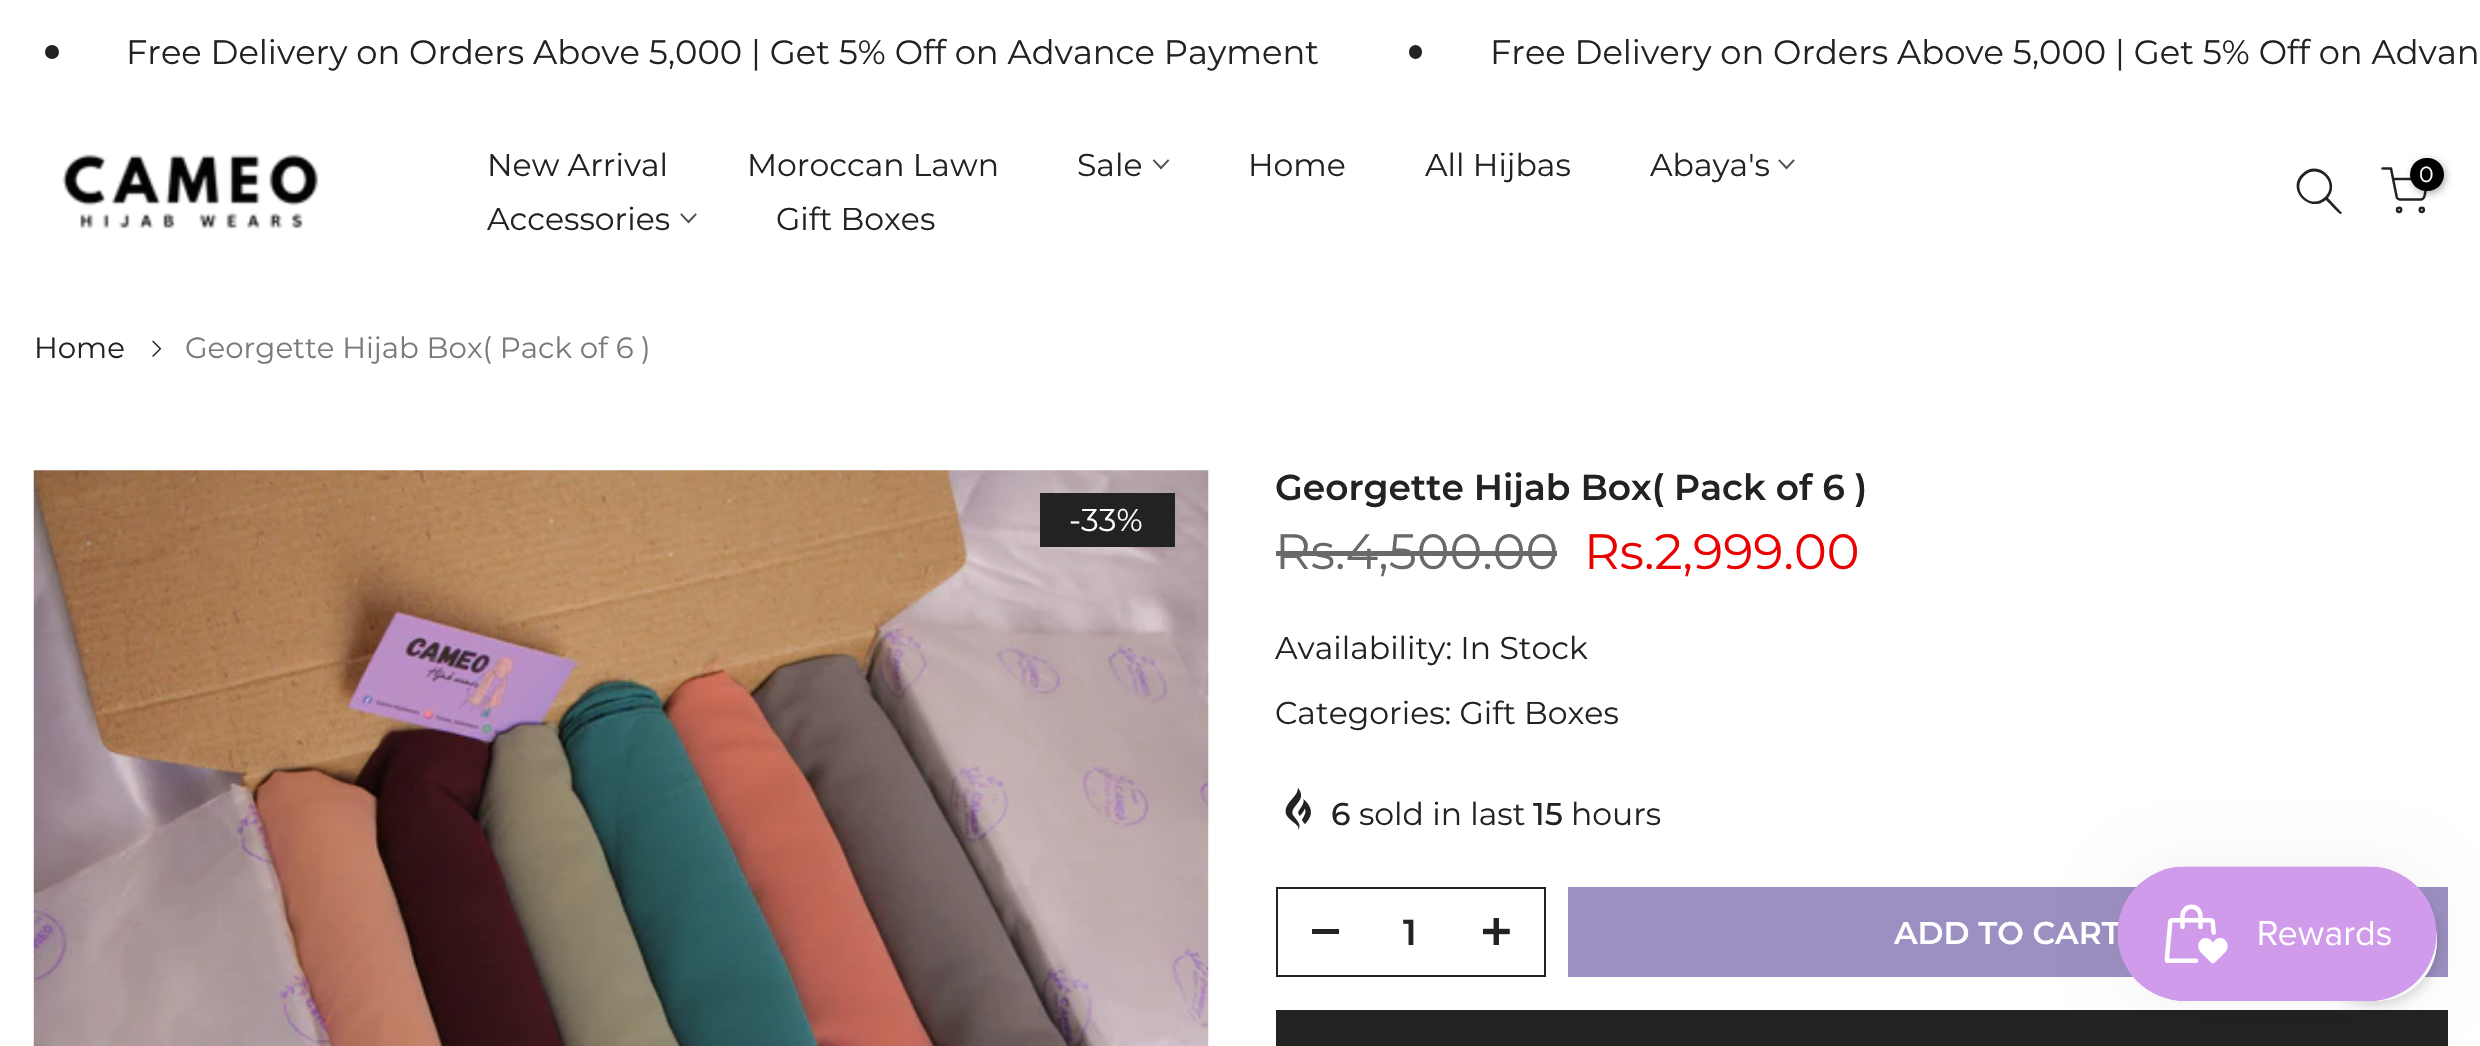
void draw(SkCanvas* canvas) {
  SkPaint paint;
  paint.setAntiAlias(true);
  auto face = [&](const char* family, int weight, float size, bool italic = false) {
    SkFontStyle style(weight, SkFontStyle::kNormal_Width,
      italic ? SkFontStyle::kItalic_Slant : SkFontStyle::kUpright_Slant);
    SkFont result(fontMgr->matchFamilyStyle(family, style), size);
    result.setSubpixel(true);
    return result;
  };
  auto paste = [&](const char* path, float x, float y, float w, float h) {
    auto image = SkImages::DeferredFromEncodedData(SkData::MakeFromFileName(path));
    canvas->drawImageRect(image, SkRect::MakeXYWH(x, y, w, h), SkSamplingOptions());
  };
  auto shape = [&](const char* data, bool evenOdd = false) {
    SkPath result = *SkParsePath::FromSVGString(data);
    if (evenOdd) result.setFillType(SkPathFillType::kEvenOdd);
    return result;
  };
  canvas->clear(0xffffffff);
  paint.setColor(0xff222222);
  canvas->drawCircle(52, 52, 7, paint);
  canvas->drawRoundRect(SkRect::MakeXYWH(1409, 45, 13, 14), 6.5f, 6.5f, paint);
  paste("img/1.png", 62, 154, 257, 75);
  paint.setStroke(true);
  paint.setStrokeWidth(1.9f);
  paint.setStrokeCap(SkPaint::kSquare_Cap);
  paint.setColor(0xff4e4e4e);
  canvas->drawPath(shape("M1168 160.5L1161 168L1154 160.5"), paint);
  canvas->drawPath(shape("M1793.5 160.5L1786.5 168L1779.5 160.5"), paint);
  canvas->drawPath(shape("M695.5 214.5L688.5 222L681.5 214.5"), paint);
  paint.setStroke(false);
  paint.setColor(0xff222222);
  canvas->drawPath(shape("M2325 197C2311 211 2290 190 2304 176C2318 162 2339 183 2325 197ZM2326 200C2309 214 2286 189 2302 174C2318 158 2342 181 2328 198L2342 213L2341 214C2340 215 2328 202 2326 200Z", true), paint);
  paint.setStroke(true);
  paint.setStrokeWidth(2.5f);
  paint.setStrokeCap(SkPaint::kRound_Cap);
  paint.setStrokeJoin(SkPaint::kRound_Join);
  canvas->drawPath(shape("M2382.5 168.5H2391L2396.5 196C2396.5 198 2398.5 199.5 2400.5 199.5H2420.5C2422.5 199.5 2424 198 2424.5 196L2428 179H2393"), paint);
  paint.setStroke(false);
  paint.setColor(0x4d000000);
  paint.setMaskFilter(SkMaskFilter::MakeBlur(kNormal_SkBlurStyle, 3.5f));
  canvas->drawRoundRect(SkRect::MakeXYWH(2412, 160, 34, 34), 17, 17, paint);
  paint.setMaskFilter(nullptr);
  paint.setColor(0xff000000);
  canvas->drawRoundRect(SkRect::MakeXYWH(2410, 158, 34, 33), 16.5f, 16.5f, paint);
  paint.setStroke(true);
  paint.setStrokeCap(SkPaint::kButt_Cap);
  paint.setStrokeJoin(SkPaint::kMiter_Join);
  paint.setColor(0xff222222);
  canvas->drawCircle(2399.1f, 209.8f, 2.1f, paint);
  canvas->drawCircle(2421.8f, 209.8f, 2.1f, paint);
  paste("img/2.png", 152, 340, 10, 17);
  paste("img/3.png", 33, 470, 1176, 576);
  paint.setStroke(false);
  canvas->drawRect(SkRect::MakeXYWH(1040, 493, 135, 54), paint);
  paint.setColor(0xff696969);
  canvas->drawRect(SkRect::MakeXYWH(1276, 551, 281, 5), paint);
  paste("img/4.png", 1285, 788, 26, 42);
  paint.setStroke(true);
  paint.setStrokeWidth(2);
  paint.setColor(0xff222222);
  canvas->drawRect(SkRect::MakeXYWH(1277, 888, 268, 88), paint);
  paint.setStroke(false);
  canvas->drawRect(SkRect::MakeXYWH(1312, 929, 27, 5), paint);
  paste("img/5.png", 1483, 918, 27, 27);
  paint.setColor(0xff9c90c2);
  canvas->drawRect(SkRect::MakeXYWH(1568, 887, 880, 90), paint);
  paint.setColor(0xff222222);
  canvas->drawRect(SkRect::MakeXYWH(1276, 1010, 1172, 36), paint);
  paint.setColor(0x331b1b1b);
  paint.setMaskFilter(SkMaskFilter::MakeBlur(kNormal_SkBlurStyle, 7));
  canvas->drawRoundRect(SkRect::MakeXYWH(2315, 882, 122, 122), 61, 61, paint);
  paint.setMaskFilter(nullptr);
  paint.setColor(0xffffffff);
  canvas->drawRoundRect(SkRect::MakeXYWH(2316, 881, 120, 119), 59.5f, 59.5f, paint);
  paint.setStroke(true);
  canvas->drawRoundRect(SkRect::MakeXYWH(2316, 881, 120, 119), 59.5f, 59.5f, paint);
  paint.setStroke(false);
  paint.setColor(0x0d000000);
  paint.setMaskFilter(SkMaskFilter::MakeBlur(kNormal_SkBlurStyle, 28));
  canvas->drawRoundRect(SkRect::MakeXYWH(2117, 866, 320, 135), 67.5f, 67.5f, paint);
  paint.setMaskFilter(nullptr);
  auto f0 = face("Montserrat", 400, 33.75f);
  paint.setColor(0xff222222);
  canvas->drawString("Free Delivery on Orders Above 5,000 | Get 5% Off on Advance Payment", 126, 64, f0, paint);
  canvas->drawString("Free Delivery on Orders Above 5,000 | Get 5% Off on Advan", 1490, 64, f0, paint);
  auto f1 = face("Montserrat", 400, 31.5f);
  {
    const struct { const char* s; float x, y; } items[] = {
      {"New Arrival", 487, 176},
      {"Moroccan Lawn", 747, 176},
      {"Sale", 1077, 176},
      {"Home", 1248, 176},
      {"All Hijbas", 1425, 176},
      {"Abaya's", 1650, 176},
      {"Accessories", 487, 230},
      {"Gift Boxes", 776, 230},
    };
    for (auto [s, x, y] : items) {
      canvas->drawString(s, x, y, f1, paint);
    }
  }
  auto f2 = face("Montserrat", 400, 22);
  paint.setColor(0xffffffff);
  canvas->drawString("0", 2419, 182, f2, paint);
  auto f3 = face("Montserrat", 400, 29.25f);
  paint.setColor(0xff222222);
  canvas->drawString("Home", 34, 358, f3, paint);
  paint.setColor(0xff7a7a7a);
  canvas->drawString("Georgette Hijab Box( Pack of 6 )", 185, 358, f3, paint);
  paint.setColor(0xffffffff);
  canvas->drawString("-33%", 1069, 531, f1, paint);
  auto f4 = face("Montserrat", 600, 36);
  paint.setColor(0xff222222);
  canvas->drawString("Georgette Hijab Box( Pack of 6 )", 1275, 500, f4, paint);
  auto f5 = face("Montserrat", 400, 49.5f);
  paint.setColor(0xff696969);
  canvas->drawString("Rs.4,500.00", 1275, 569, f5, paint);
  paint.setColor(0xffec0101);
  canvas->drawString("Rs.2,999.00", 1584, 569, f5, paint);
  paint.setColor(0xff222222);
  canvas->drawString("Availability: In Stock", 1275, 659, f1, paint);
  canvas->drawString("Categories: Gift Boxes", 1275, 724, f1, paint);
  auto f6 = face("Montserrat", 500, 31.5f);
  canvas->drawString("6", 1331, 825, f6, paint);
  canvas->drawString("sold in last", 1359, 825, f1, paint);
  canvas->drawString("15", 1533, 825, f6, paint);
  canvas->drawString("hours", 1571, 825, f1, paint);
  canvas->drawString("1", 1403, 945, f4, paint);
  auto f7 = face("Montserrat", 600, 31.5f);
  paint.setColor(0xffffffff);
  canvas->drawString("ADD TO CART", 1894, 944, f7, paint);
  paste("img/6.png", 2117, 866, 320, 135);
}
